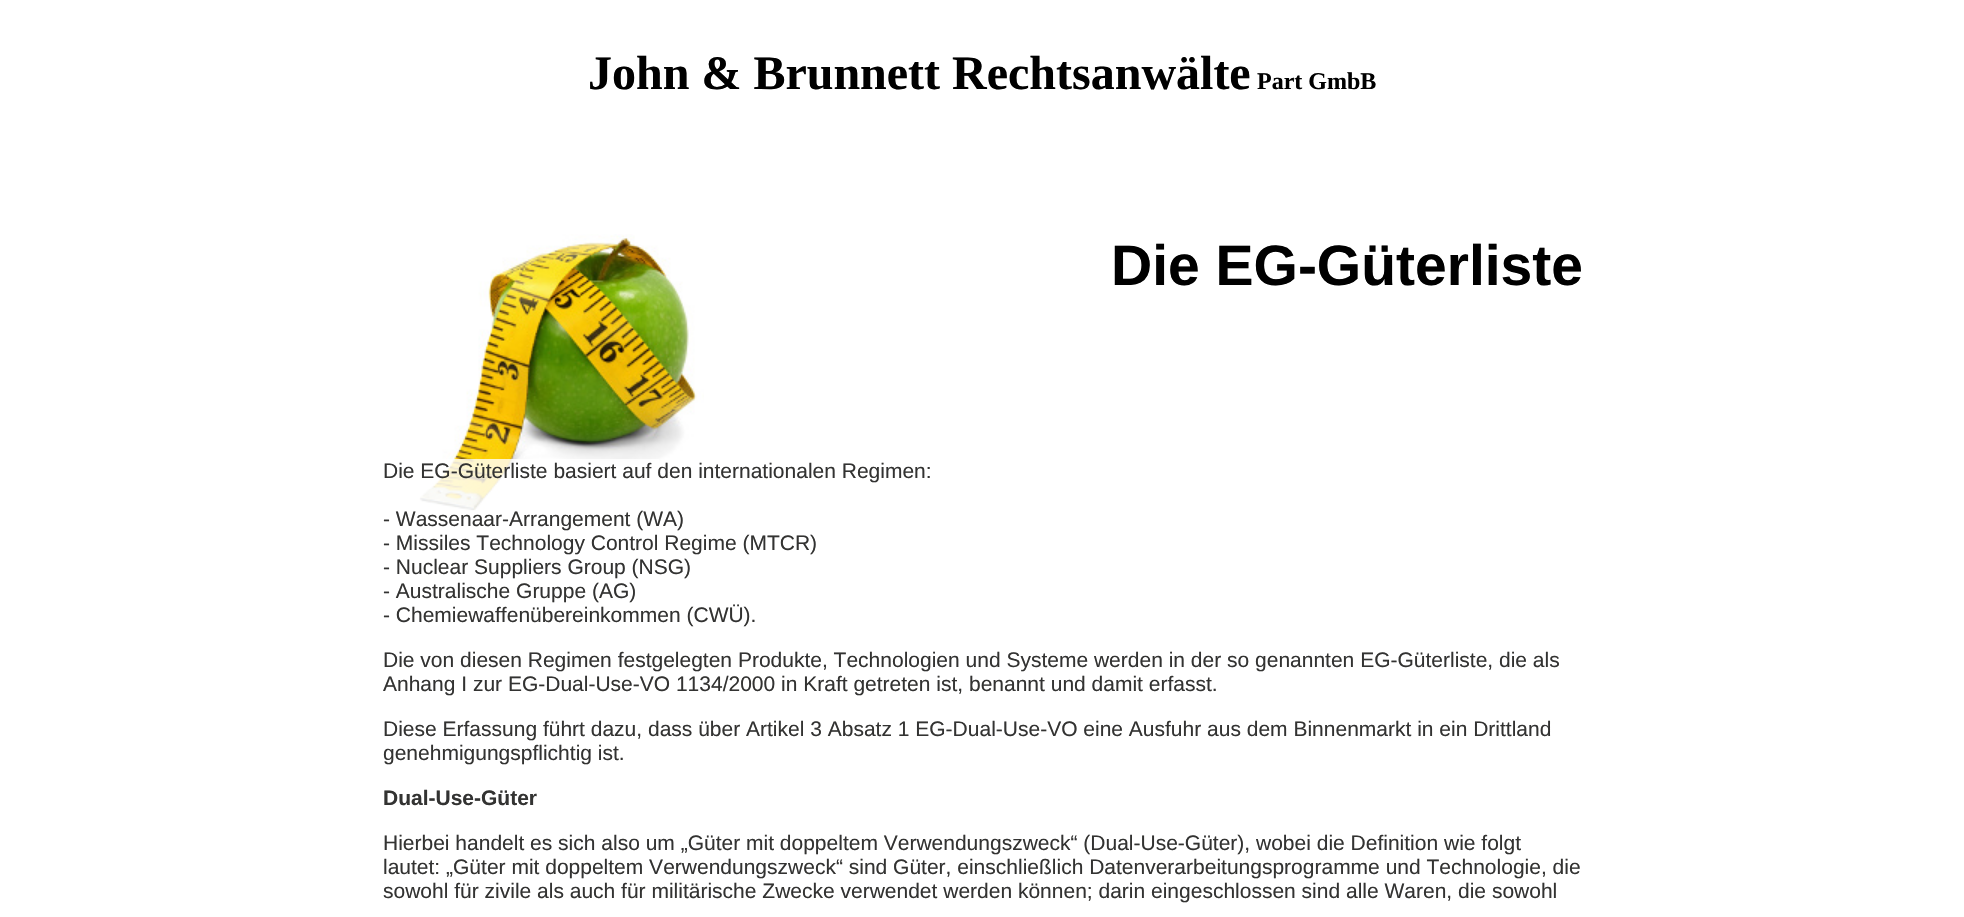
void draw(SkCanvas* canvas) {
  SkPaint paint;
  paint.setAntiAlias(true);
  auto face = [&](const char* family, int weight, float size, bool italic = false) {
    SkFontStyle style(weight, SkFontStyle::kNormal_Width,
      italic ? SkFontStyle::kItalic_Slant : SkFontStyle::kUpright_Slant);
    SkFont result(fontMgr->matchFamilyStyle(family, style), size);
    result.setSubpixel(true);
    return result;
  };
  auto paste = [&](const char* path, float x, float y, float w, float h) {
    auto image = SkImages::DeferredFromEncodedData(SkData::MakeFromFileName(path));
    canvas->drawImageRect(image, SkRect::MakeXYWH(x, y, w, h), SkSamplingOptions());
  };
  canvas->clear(0xffffffff);
  paste("img/1.png", 419, 234, 285, 277);
  paint.setColor(0xccffffff);
  canvas->drawRect(SkRect::MakeXYWH(419, 459, 240, 52), paint);
  auto f0 = face("Liberation Serif", 700, 48);
  paint.setColor(0xff000000);
  canvas->drawString("John & Brunnett Rechtsanwälte", 588, 89, f0, paint);
  auto f1 = face("Liberation Serif", 700, 24);
  canvas->drawString("Part GmbB", 1257, 89, f1, paint);
  auto f2 = face("Liberation Sans", 700, 57);
  canvas->drawString("Die EG-Güterliste", 1111, 285, f2, paint);
  auto f3 = face("Liberation Sans", 400, 21);
  paint.setColor(0xff333332);
  {
    const struct { const char* s; float x, y; } items[] = {
      {"Die EG-Güterliste basiert auf den internationalen Regimen:", 383, 478},
      {"- Wassenaar-Arrangement (WA)", 383, 526},
      {"- Missiles Technology Control Regime (MTCR)", 383, 550},
      {"- Nuclear Suppliers Group (NSG)", 383, 574},
      {"- Australische Gruppe (AG)", 383, 598},
      {"- Chemiewaffenübereinkommen (CWÜ).", 383, 622},
      {"Die von diesen Regimen festgelegten Produkte, Technologien und Systeme werden in der so genannten EG-Güterliste, die als", 383, 667},
      {"Anhang I zur EG-Dual-Use-VO 1134/2000 in Kraft getreten ist, benannt und damit erfasst.", 383, 691},
      {"Diese Erfassung führt dazu, dass über Artikel 3 Absatz 1 EG-Dual-Use-VO eine Ausfuhr aus dem Binnenmarkt in ein Drittland", 383, 736},
      {"genehmigungspflichtig ist.", 383, 760},
    };
    for (auto [s, x, y] : items) {
      canvas->drawString(s, x, y, f3, paint);
    }
  }
  auto f4 = face("Liberation Sans", 700, 21);
  canvas->drawString("Dual-Use-Güter", 383, 805, f4, paint);
  {
    const struct { const char* s; float x, y; } items[] = {
      {"Hierbei handelt es sich also um „Güter mit doppeltem Verwendungszweck“ (Dual-Use-Güter), wobei die Definition wie folgt", 383, 850},
      {"lautet: „Güter mit doppeltem Verwendungszweck“ sind Güter, einschließlich Datenverarbeitungsprogramme und Technologie, die", 383, 874},
      {"sowohl für zivile als auch für militärische Zwecke verwendet werden können; darin eingeschlossen sind alle Waren, die sowohl", 383, 898},
    };
    for (auto [s, x, y] : items) {
      canvas->drawString(s, x, y, f3, paint);
    }
  }
}
